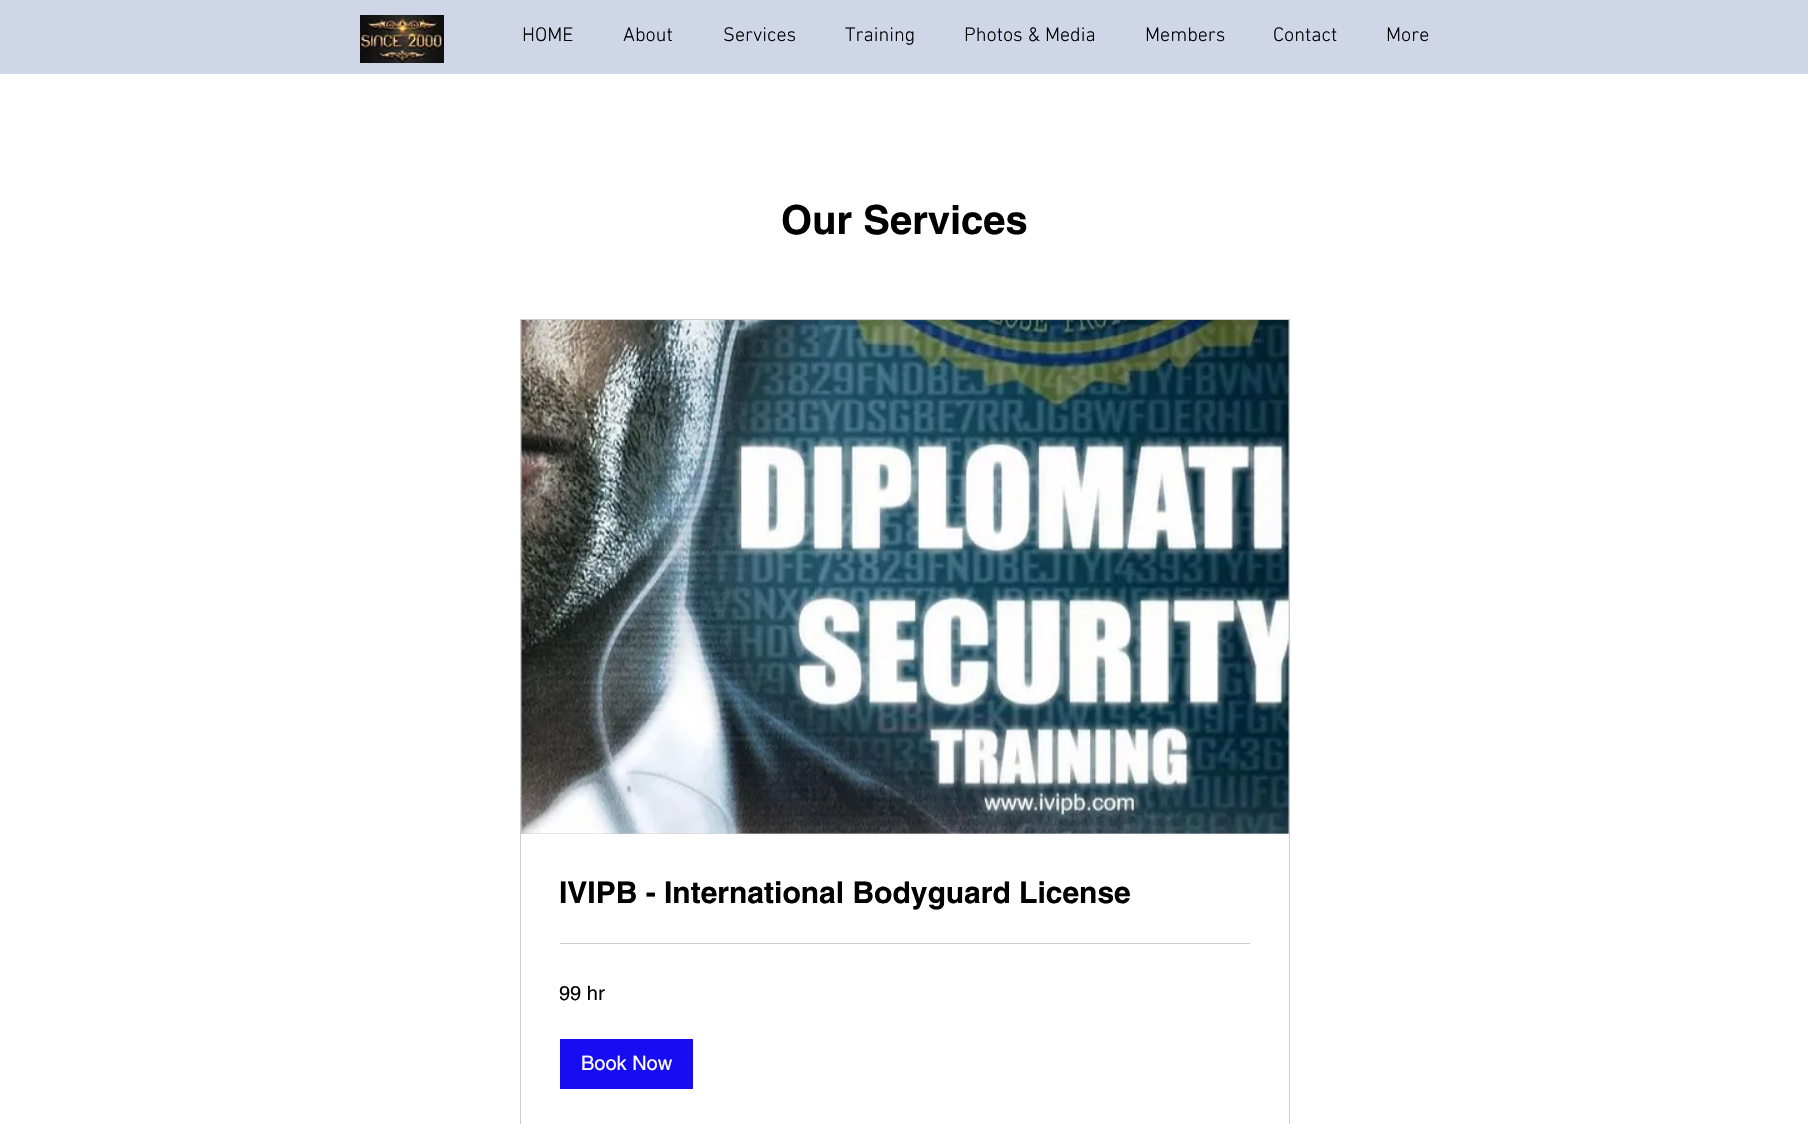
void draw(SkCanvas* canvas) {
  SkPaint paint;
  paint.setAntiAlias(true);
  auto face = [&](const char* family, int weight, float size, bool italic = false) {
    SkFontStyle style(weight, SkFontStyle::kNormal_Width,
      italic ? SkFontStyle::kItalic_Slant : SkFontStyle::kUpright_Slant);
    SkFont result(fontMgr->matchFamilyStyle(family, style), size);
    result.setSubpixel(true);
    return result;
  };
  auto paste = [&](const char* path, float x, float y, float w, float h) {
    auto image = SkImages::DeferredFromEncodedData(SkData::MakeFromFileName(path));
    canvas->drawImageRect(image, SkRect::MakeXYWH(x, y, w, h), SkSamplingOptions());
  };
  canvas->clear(0xffffffff);
  paint.setColor(0xffcfd6e8);
  canvas->drawRect(SkRect::MakeXYWH(0, 0, 1808, 74), paint);
  paste("img/1.png", 360, 15, 84, 48);
  paint.setStroke(true);
  paint.setStrokeWidth(1);
  paint.setColor(0xffcccccc);
  canvas->drawRect(SkRect::MakeXYWH(520.5f, 319.5f, 769, 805), paint);
  paint.setStroke(false);
  paint.setColor(0xffcdcdcd);
  canvas->drawRect(SkRect::MakeXYWH(521, 320, 768, 514), paint);
  paste("img/2.png", 521, 320, 768, 514);
  paint.setColor(0xffcccccc);
  canvas->drawRect(SkRect::MakeXYWH(560, 943, 690, 1), paint);
  paint.setColor(0xff170df2);
  canvas->drawRect(SkRect::MakeXYWH(560, 1039, 133, 50), paint);
  auto f0 = face("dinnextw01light", 300, 20);
  paint.setColor(0xff000000);
  {
    const struct { const char* s; float x, y; } items[] = {
      {"HOME", 522, 41},
      {"About", 623, 41},
      {"Services", 723, 41},
      {"Training", 845, 41},
      {"Photos & Media", 964, 41},
      {"Members", 1145, 41},
      {"Contact", 1273, 41},
      {"More", 1386, 41},
    };
    for (auto [s, x, y] : items) {
      canvas->drawString(s, x, y, f0, paint);
    }
  }
  auto f1 = face("helvetica", 700, 40);
  canvas->drawString("Our Services", 781, 234, f1, paint);
  auto f2 = face("helvetica", 700, 30);
  canvas->drawString("IVIPB - International Bodyguard License", 559, 903, f2, paint);
  auto f3 = face("helvetica", 400, 20);
  canvas->drawString("99 hr", 559, 1000, f3, paint);
  paint.setColor(0xffffffff);
  canvas->drawString("Book Now", 581, 1070, f3, paint);
}
